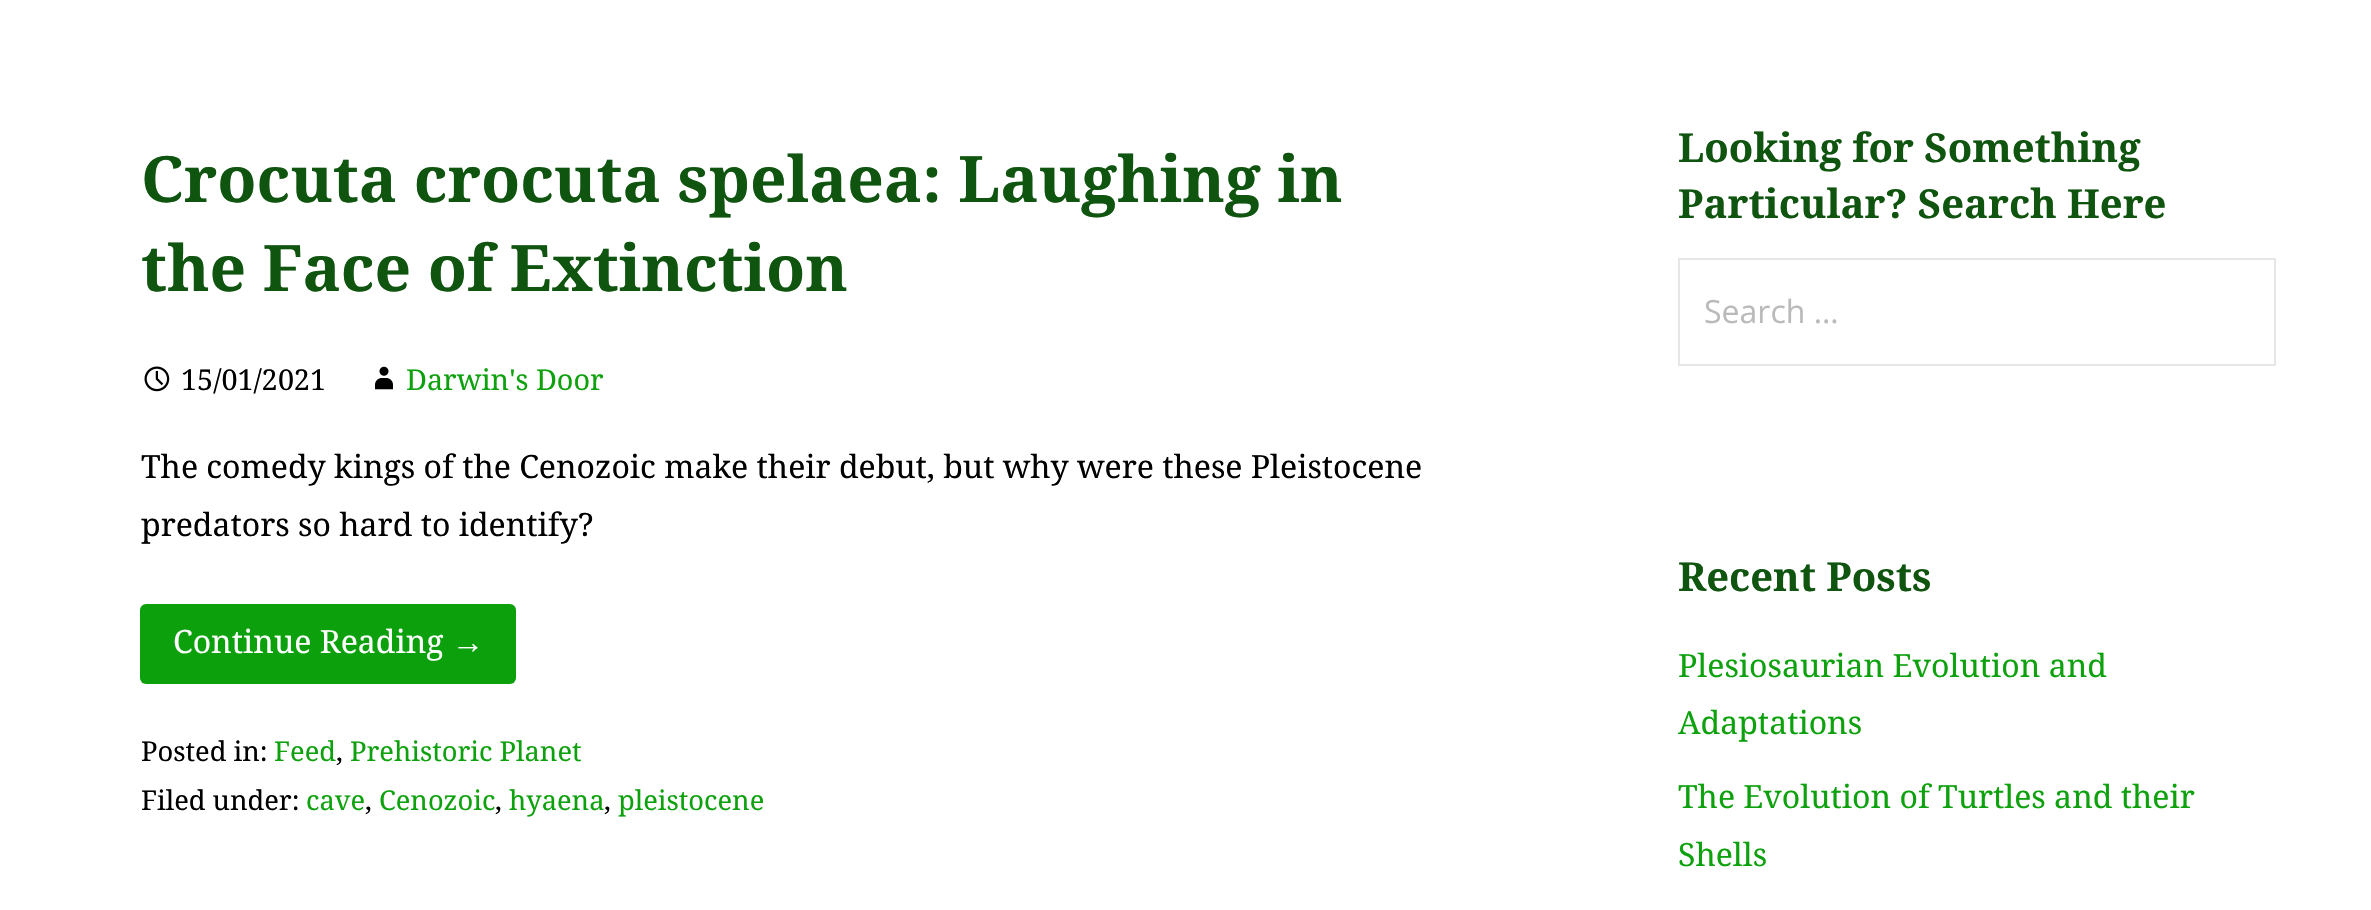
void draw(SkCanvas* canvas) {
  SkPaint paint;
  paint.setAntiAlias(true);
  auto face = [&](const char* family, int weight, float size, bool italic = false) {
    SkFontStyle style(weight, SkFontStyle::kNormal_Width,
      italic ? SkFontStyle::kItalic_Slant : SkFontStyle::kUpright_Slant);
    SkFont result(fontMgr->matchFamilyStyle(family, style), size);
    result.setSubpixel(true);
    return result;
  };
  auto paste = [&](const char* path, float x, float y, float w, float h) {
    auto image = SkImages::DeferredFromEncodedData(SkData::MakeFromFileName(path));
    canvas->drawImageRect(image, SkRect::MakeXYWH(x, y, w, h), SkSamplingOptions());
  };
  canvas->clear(0xffffffff);
  paste("img/1.png", 144, 366, 26, 26);
  paste("img/2.png", 375, 366, 18, 24);
  paint.setColor(0xff0ca10c);
  canvas->drawRoundRect(SkRect::MakeXYWH(140, 604, 376, 80), 6, 6, paint);
  paint.setStroke(true);
  paint.setStrokeWidth(2);
  paint.setColor(0xffe6e6e6);
  canvas->drawRect(SkRect::MakeXYWH(1679, 259, 596, 106), paint);
  auto f0 = face("Droid Serif", 700, 64);
  paint.setStroke(false);
  paint.setColor(0xff0f540f);
  canvas->drawString("Crocuta crocuta spelaea: Laughing in", 141, 202, f0, paint);
  canvas->drawString("the Face of Extinction", 141, 291, f0, paint);
  auto f1 = face("Droid Serif", 400, 28.75f);
  paint.setColor(0xff000000);
  canvas->drawString("15/01/2021", 181, 390, f1, paint);
  paint.setColor(0xff0da10d);
  canvas->drawString("Darwin's Door", 406, 390, f1, paint);
  auto f2 = face("Droid Serif", 400, 32);
  paint.setColor(0xff000000);
  canvas->drawString("The comedy kings of the Cenozoic make their debut, but why were these Pleistocene", 141, 478, f2, paint);
  canvas->drawString("predators so hard to identify?", 141, 536, f2, paint);
  paint.setColor(0xffffffff);
  canvas->drawString("Continue Reading", 173, 653, f2, paint);
  auto f3 = face("Liberation Sans", 400, 32);
  canvas->drawString("→", 452, 653, f3, paint);
  auto f4 = face("Droid Serif", 400, 27.25f);
  paint.setColor(0xff000000);
  canvas->drawString("Posted in:", 141, 761, f4, paint);
  paint.setColor(0xff0da10d);
  canvas->drawString("Feed", 274, 761, f4, paint);
  paint.setColor(0xff000000);
  canvas->drawString(",", 336, 761, f4, paint);
  paint.setColor(0xff0da10d);
  canvas->drawString("Prehistoric Planet", 350, 761, f4, paint);
  paint.setColor(0xff000000);
  canvas->drawString("Filed under:", 141, 810, f4, paint);
  paint.setColor(0xff0da10d);
  canvas->drawString("cave", 306, 810, f4, paint);
  paint.setColor(0xff000000);
  canvas->drawString(",", 365, 810, f4, paint);
  paint.setColor(0xff0da10d);
  canvas->drawString("Cenozoic", 379, 810, f4, paint);
  paint.setColor(0xff000000);
  canvas->drawString(",", 495, 810, f4, paint);
  paint.setColor(0xff0da10d);
  canvas->drawString("hyaena", 509, 810, f4, paint);
  paint.setColor(0xff000000);
  canvas->drawString(",", 604, 810, f4, paint);
  paint.setColor(0xff0da10d);
  canvas->drawString("pleistocene", 618, 810, f4, paint);
  auto f5 = face("Droid Serif", 700, 40);
  paint.setColor(0xff0f540f);
  canvas->drawString("Looking for Something", 1678, 162, f5, paint);
  canvas->drawString("Particular? Search Here", 1678, 218, f5, paint);
  auto f6 = face("Open Sans", 400, 32);
  paint.setColor(0xffbababa);
  canvas->drawString("Search …", 1704, 323, f6, paint);
  paint.setColor(0xff0f540f);
  canvas->drawString("Recent Posts", 1678, 591, f5, paint);
  paint.setColor(0xff0da10d);
  {
    const struct { const char* s; float x, y; } items[] = {
      {"Plesiosaurian Evolution and", 1678, 677},
      {"Adaptations", 1678, 734},
      {"The Evolution of Turtles and their", 1678, 808},
      {"Shells", 1678, 866},
    };
    for (auto [s, x, y] : items) {
      canvas->drawString(s, x, y, f2, paint);
    }
  }
}
